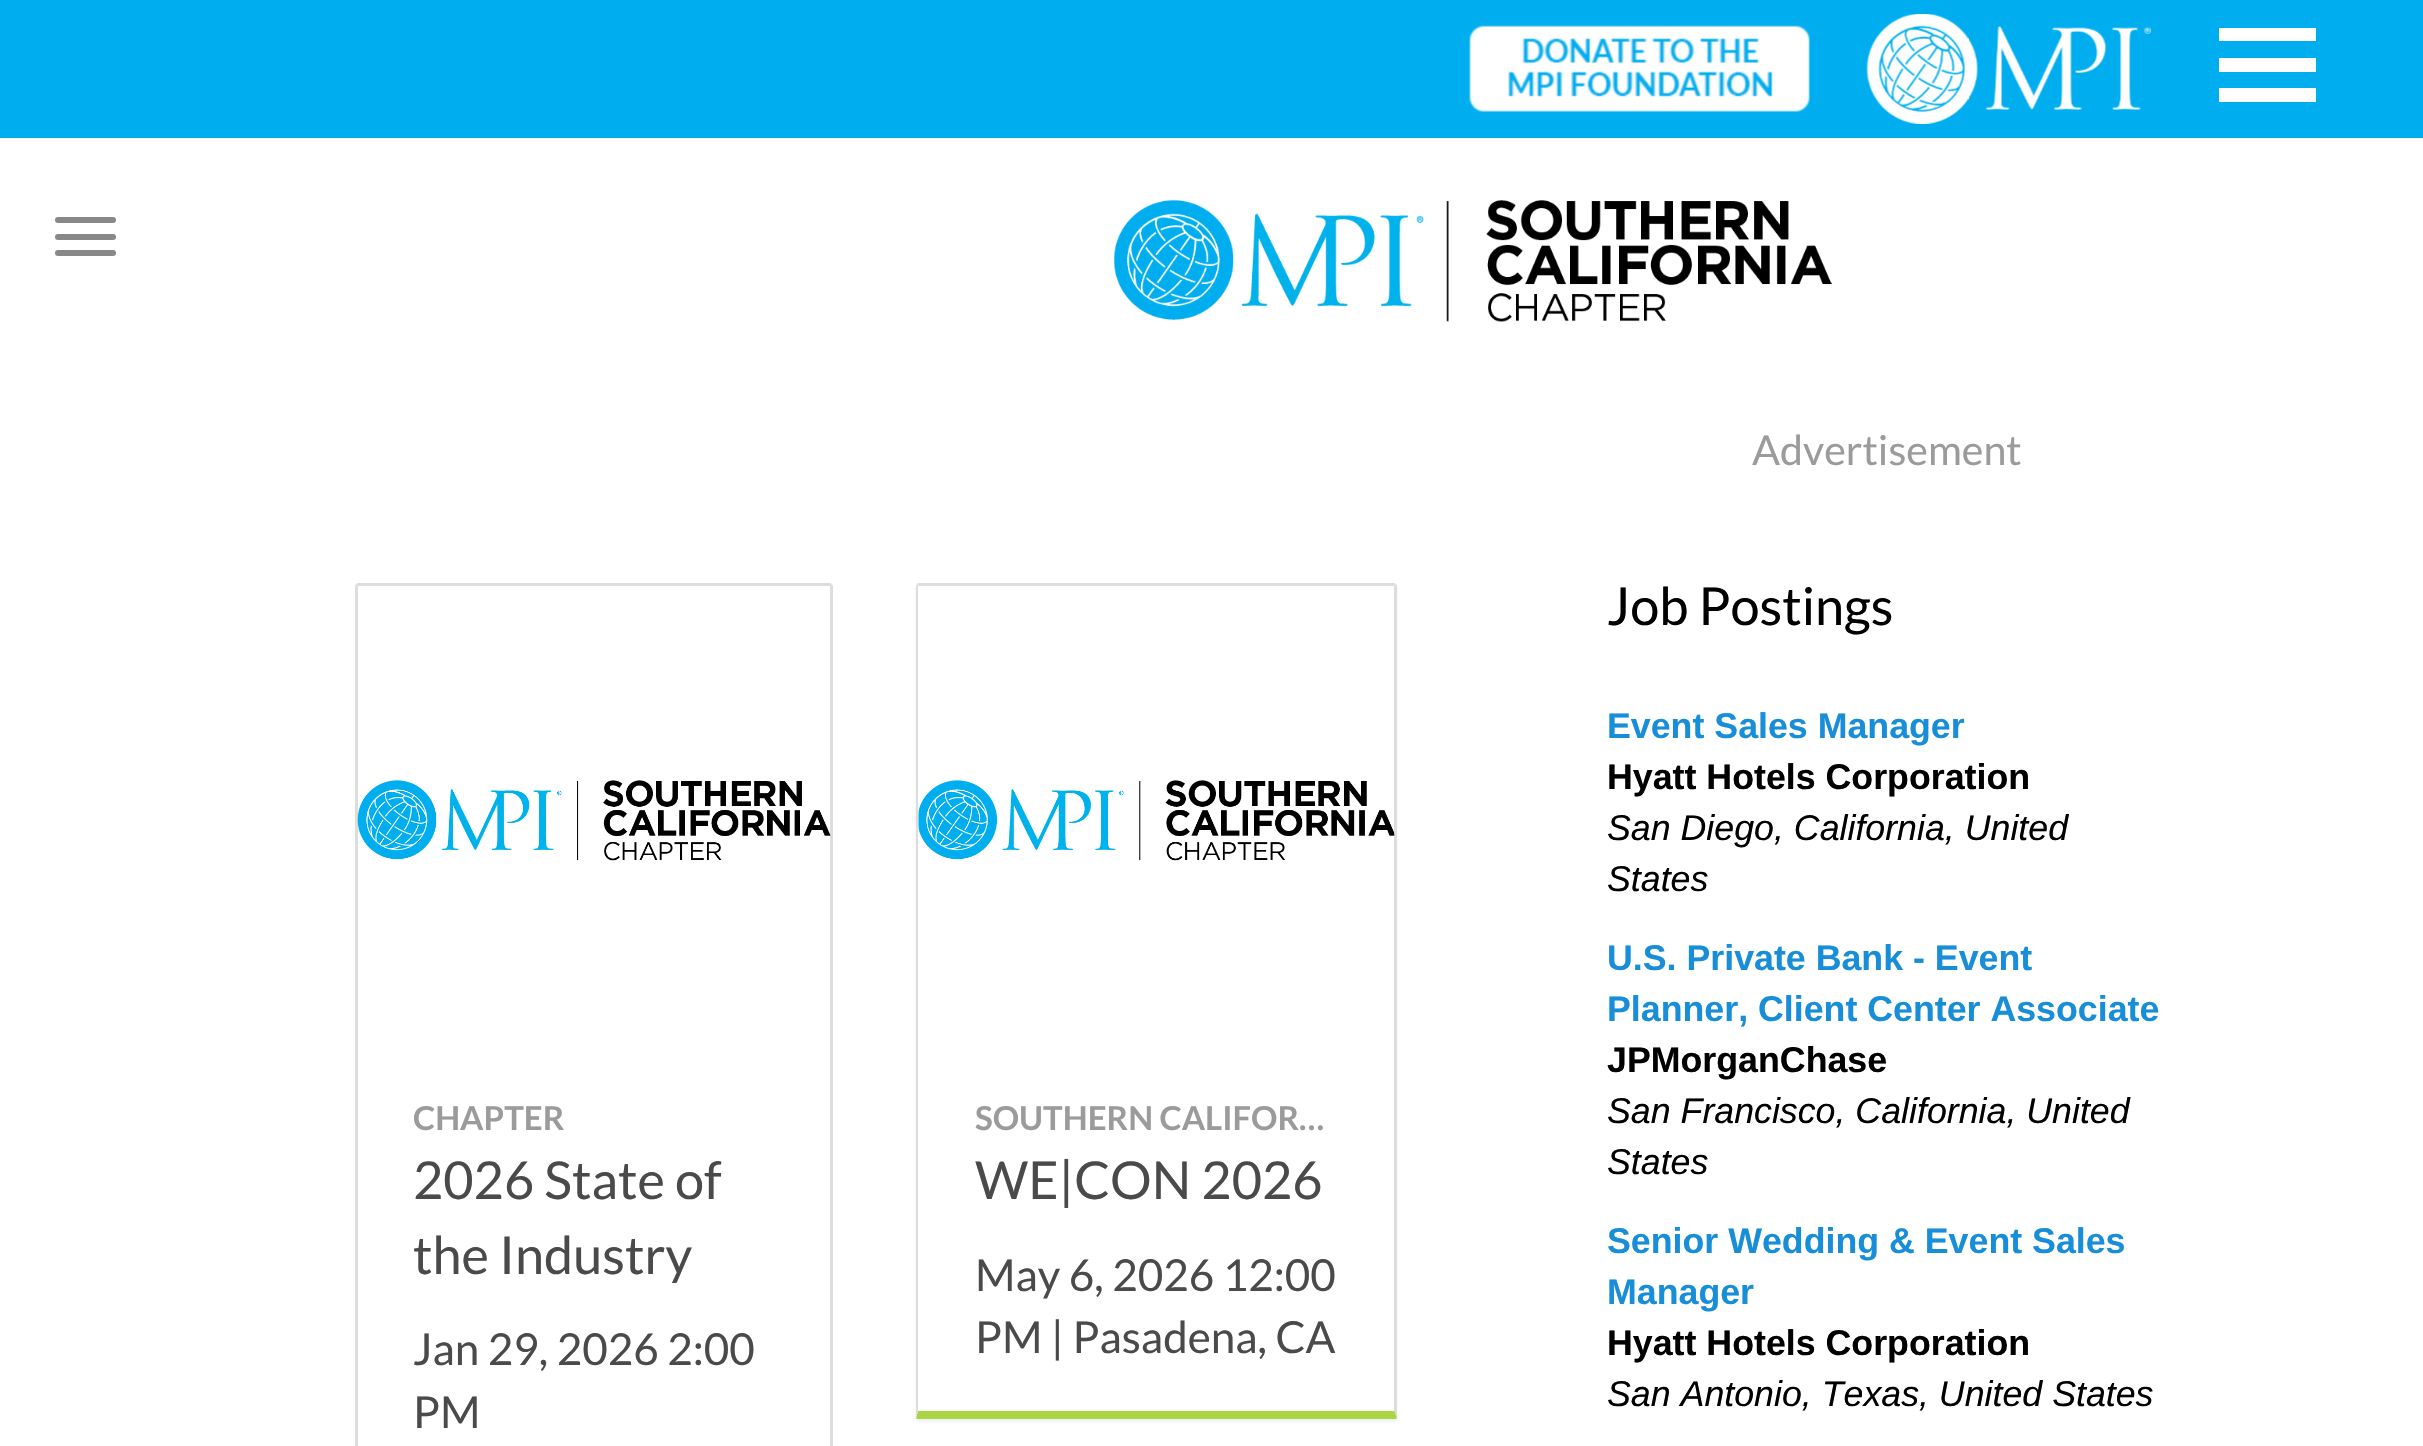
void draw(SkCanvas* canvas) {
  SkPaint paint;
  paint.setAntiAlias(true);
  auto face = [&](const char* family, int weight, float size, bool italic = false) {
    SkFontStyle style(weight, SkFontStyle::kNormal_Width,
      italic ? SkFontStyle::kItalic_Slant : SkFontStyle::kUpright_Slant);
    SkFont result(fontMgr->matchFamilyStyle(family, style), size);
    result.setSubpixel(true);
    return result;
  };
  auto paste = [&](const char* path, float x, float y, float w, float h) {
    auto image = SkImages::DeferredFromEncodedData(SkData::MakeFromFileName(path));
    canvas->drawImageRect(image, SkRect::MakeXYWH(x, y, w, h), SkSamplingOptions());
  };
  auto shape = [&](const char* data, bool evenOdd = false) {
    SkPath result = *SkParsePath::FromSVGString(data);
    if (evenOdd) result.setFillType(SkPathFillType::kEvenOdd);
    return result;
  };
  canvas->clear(0xffffffff);
  paint.setColor(0xff00aeef);
  canvas->drawRect(SkRect::MakeXYWH(0, 0, 2423, 138), paint);
  paste("img/1.png", 1469, 25, 341, 87);
  paste("img/2.png", 1866, 14, 285, 110);
  {
    const struct { float x, y, w, h; SkColor color; } items[] = {
      {2219, 28, 97, 13, 0xffffffff},
      {2219, 58, 97, 14, 0xffffffff},
      {2219, 88, 97, 14, 0xffffffff},
    };
    for (auto [x, y, w, h, color] : items) {
      paint.setColor(color);
      canvas->drawRect(SkRect::MakeXYWH(x, y, w, h), paint);
    }
  }
  paint.setColor(0xff888888);
  canvas->drawRoundRect(SkRect::MakeXYWH(55, 217, 61, 6), 3, 3, paint);
  canvas->drawRoundRect(SkRect::MakeXYWH(55, 234, 61, 6), 3, 3, paint);
  canvas->drawRoundRect(SkRect::MakeXYWH(55, 250, 61, 6), 3, 3, paint);
  paste("img/3.png", 1114, 200, 718, 122);
  paint.setColor(0xffdddddd);
  canvas->drawPath(shape("M358 583L356 584L358 586H830L832 584L830 583Z"), paint);
  canvas->drawPath(shape("M832 584L833 586V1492L830 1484V586Z"), paint);
  canvas->drawPath(shape("M356 584L355 586V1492L358 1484V586Z"), paint);
  paste("img/4.png", 357, 780, 474, 81);
  canvas->save();
  canvas->clipPath(shape("M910 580H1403V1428H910ZM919 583H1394C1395.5 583 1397 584.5 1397 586V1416C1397 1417.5 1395.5 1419 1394 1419H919C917.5 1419 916 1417.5 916 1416V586C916 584.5 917.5 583 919 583Z", true), true);
  paint.setColor(0x0d000000);
  paint.setMaskFilter(SkMaskFilter::MakeBlur(kNormal_SkBlurStyle, 1.5f));
  canvas->drawRoundRect(SkRect::MakeXYWH(916, 586, 481, 836), 3, 3, paint);
  paint.setMaskFilter(nullptr);
  canvas->restore();
  paint.setColor(0xffdddddd);
  canvas->drawPath(shape("M918 583L917 584L919 586H1394L1396 584L1394 583Z"), paint);
  canvas->drawPath(shape("M1397 1416V586L1396 584L1394 586V1410L1397 1418Z"), paint);
  paint.setColor(0xffa8d644);
  canvas->drawPath(shape("M918 1419H1394C1395 1419 1396 1419 1397 1418L1394 1410V1411H918L916 1418C917 1419 917 1419 918 1419Z"), paint);
  paint.setColor(0xffdddddd);
  canvas->drawPath(shape("M918 586H919L917 584L916 586V1418L918 1411Z"), paint);
  paste("img/5.png", 918, 780, 477, 81);
  auto f0 = face("Lato", 700, 33);
  paint.setColor(0xff9b9b9b);
  canvas->drawString("CHAPTER", 413, 1130, f0, paint);
  auto f1 = face("Lato", 400, 52.25f);
  paint.setColor(0xff4a4a4a);
  canvas->drawString("2026 State of", 413, 1199, f1, paint);
  canvas->drawString("the Industry", 413, 1274, f1, paint);
  auto f2 = face("Lato", 400, 44);
  canvas->drawString("Jan 29, 2026 2:00", 413, 1365, f2, paint);
  canvas->drawString("PM", 413, 1428, f2, paint);
  paint.setColor(0xff9b9b9b);
  canvas->drawString("SOUTHERN CALIFOR…", 975, 1130, f0, paint);
  paint.setColor(0xff4a4a4a);
  canvas->drawString("WE|CON 2026", 975, 1199, f1, paint);
  canvas->drawString("May 6, 2026 12:00", 975, 1291, f2, paint);
  canvas->drawString("PM | Pasadena, CA", 975, 1353, f2, paint);
  auto f3 = face("Lato", 400, 41.25f);
  paint.setColor(0xff9b9b9b);
  canvas->drawString("Advertisement", 1752, 465, f3, paint);
  paint.setColor(0xff000000);
  canvas->drawString("Job Postings", 1607, 625, f1, paint);
  auto f4 = face("Liberation Sans", 700, 35.75f);
  paint.setColor(0xff198ed8);
  canvas->drawString("Event Sales Manager", 1607, 738, f4, paint);
  paint.setColor(0xff000000);
  canvas->drawString("Hyatt Hotels Corporation", 1607, 789, f4, paint);
  auto f5 = face("Liberation Sans", 400, 35.75f, true);
  canvas->drawString("San Diego, California, United", 1607, 840, f5, paint);
  canvas->drawString("States", 1607, 891, f5, paint);
  paint.setColor(0xff198ed8);
  canvas->drawString("U.S. Private Bank - Event", 1607, 970, f4, paint);
  canvas->drawString("Planner, Client Center Associate", 1607, 1021, f4, paint);
  paint.setColor(0xff000000);
  canvas->drawString("JPMorganChase", 1607, 1072, f4, paint);
  canvas->drawString("San Francisco, California, United", 1607, 1123, f5, paint);
  canvas->drawString("States", 1607, 1174, f5, paint);
  paint.setColor(0xff198ed8);
  canvas->drawString("Senior Wedding & Event Sales", 1607, 1253, f4, paint);
  canvas->drawString("Manager", 1607, 1304, f4, paint);
  paint.setColor(0xff000000);
  canvas->drawString("Hyatt Hotels Corporation", 1607, 1355, f4, paint);
  canvas->drawString("San Antonio, Texas, United States", 1607, 1406, f5, paint);
}
